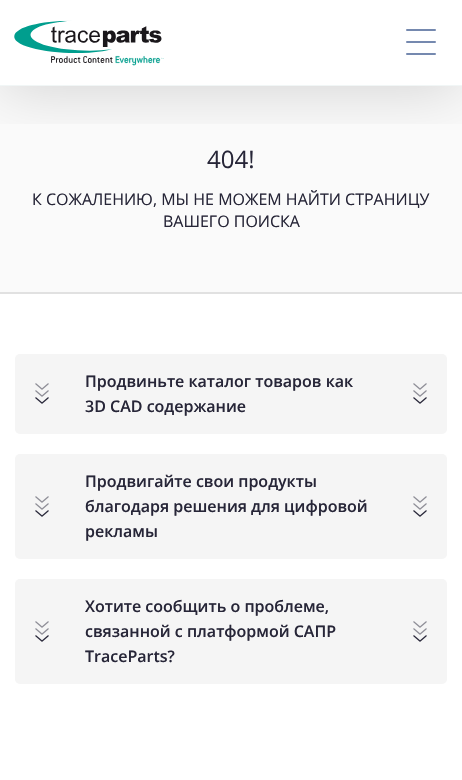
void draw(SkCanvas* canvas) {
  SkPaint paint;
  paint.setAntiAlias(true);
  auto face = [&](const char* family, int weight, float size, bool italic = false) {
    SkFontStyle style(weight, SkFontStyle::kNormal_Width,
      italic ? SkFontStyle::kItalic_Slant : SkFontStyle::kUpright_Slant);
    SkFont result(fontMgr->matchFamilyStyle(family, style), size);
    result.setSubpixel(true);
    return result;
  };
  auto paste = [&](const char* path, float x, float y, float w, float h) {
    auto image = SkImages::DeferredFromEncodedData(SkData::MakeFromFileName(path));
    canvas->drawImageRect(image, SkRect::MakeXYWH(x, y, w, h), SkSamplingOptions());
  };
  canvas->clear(0xffffffff);
  paint.setColor(0xfffafafa);
  canvas->drawRect(SkRect::MakeXYWH(0, 86, 462, 206), paint);
  canvas->save();
  canvas->clipRect(SkRect::MakeXYWH(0, 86, 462, 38));
  paint.setColor(0x26000000);
  paint.setMaskFilter(SkMaskFilter::MakeBlur(kNormal_SkBlurStyle, 30));
  canvas->drawRect(SkRect::MakeXYWH(0, 5, 462, 86), paint);
  paint.setMaskFilter(nullptr);
  canvas->restore();
  paint.setColor(0xfff1f6f6);
  canvas->drawRect(SkRect::MakeXYWH(0, 85, 462, 1), paint);
  paste("img/1.png", 14, 20, 150, 46);
  paint.setColor(0xff7589af);
  canvas->drawRoundRect(SkRect::MakeXYWH(406, 29, 30, 2), 1, 1, paint);
  canvas->drawRoundRect(SkRect::MakeXYWH(406, 41, 30, 2), 1, 1, paint);
  canvas->drawRoundRect(SkRect::MakeXYWH(406, 53, 30, 2), 1, 1, paint);
  paint.setColor(0xffe1e1e1);
  canvas->drawRect(SkRect::MakeXYWH(0, 292, 462, 2), paint);
  paint.setColor(0xfff5f5f5);
  canvas->drawRoundRect(SkRect::MakeXYWH(15, 354, 432, 80), 5, 5, paint);
  paste("img/2.png", 35, 383, 14, 21);
  paste("img/2.png", 413, 383, 14, 21);
  canvas->drawRoundRect(SkRect::MakeXYWH(15, 454, 432, 105), 5, 5, paint);
  paste("img/2.png", 35, 496, 14, 21);
  paste("img/2.png", 413, 496, 14, 21);
  canvas->drawRoundRect(SkRect::MakeXYWH(15, 579, 432, 105), 5, 5, paint);
  paste("img/2.png", 35, 621, 14, 21);
  paste("img/2.png", 413, 621, 14, 21);
  auto f0 = face("Open Sans", 400, 24);
  paint.setColor(0xff272638);
  canvas->drawString("404!", 207, 168, f0, paint);
  auto f1 = face("Open Sans", 400, 16);
  canvas->drawString("К СОЖАЛЕНИЮ, МЫ НЕ МОЖЕМ НАЙТИ СТРАНИЦУ", 32, 205, f1, paint);
  canvas->drawString("ВАШЕГО ПОИСКА", 163, 227, f1, paint);
  auto f2 = face("Open Sans", 600, 16);
  {
    const struct { const char* s; float x, y; } items[] = {
      {"Продвиньте каталог товаров как", 85, 387},
      {"3D CAD содержание", 85, 412},
      {"Продвигайте свои продукты", 85, 487},
      {"благодаря pешения для цифровой", 85, 512},
      {"рекламы", 85, 537},
      {"Хотите сообщить о проблеме,", 85, 612},
      {"связанной с платформой САПР", 85, 637},
      {"TraceParts?", 85, 662},
    };
    for (auto [s, x, y] : items) {
      canvas->drawString(s, x, y, f2, paint);
    }
  }
}
